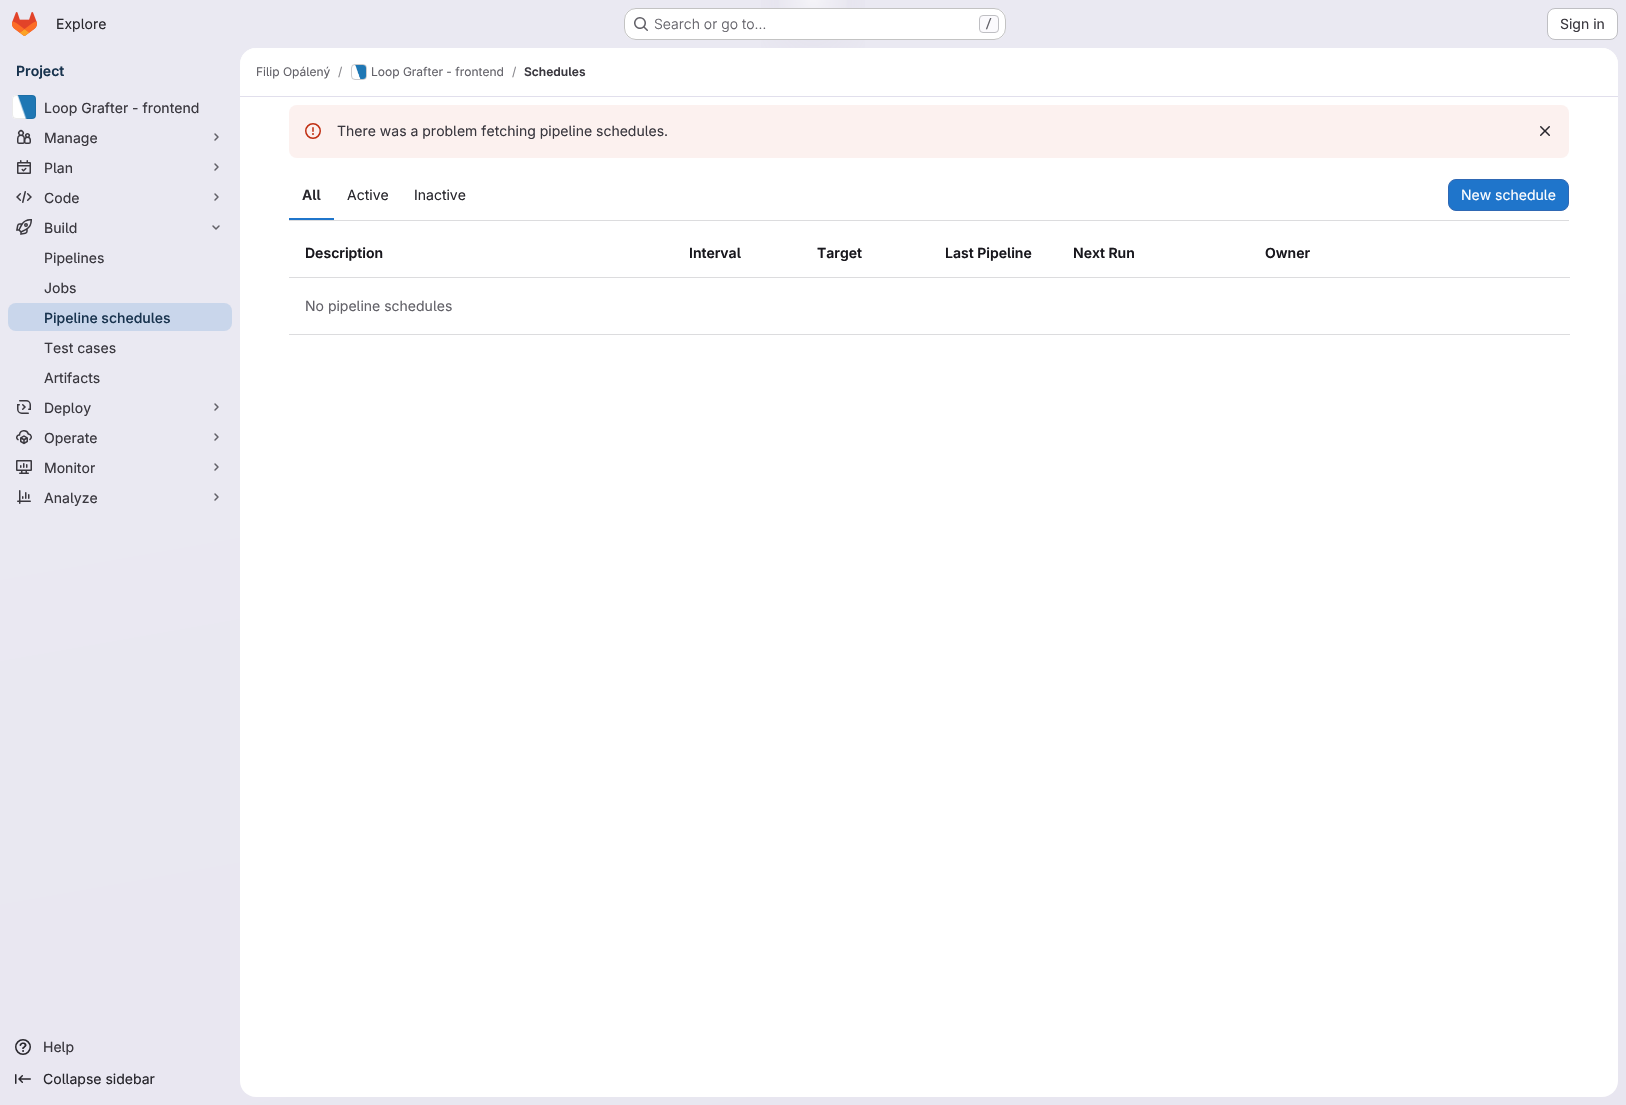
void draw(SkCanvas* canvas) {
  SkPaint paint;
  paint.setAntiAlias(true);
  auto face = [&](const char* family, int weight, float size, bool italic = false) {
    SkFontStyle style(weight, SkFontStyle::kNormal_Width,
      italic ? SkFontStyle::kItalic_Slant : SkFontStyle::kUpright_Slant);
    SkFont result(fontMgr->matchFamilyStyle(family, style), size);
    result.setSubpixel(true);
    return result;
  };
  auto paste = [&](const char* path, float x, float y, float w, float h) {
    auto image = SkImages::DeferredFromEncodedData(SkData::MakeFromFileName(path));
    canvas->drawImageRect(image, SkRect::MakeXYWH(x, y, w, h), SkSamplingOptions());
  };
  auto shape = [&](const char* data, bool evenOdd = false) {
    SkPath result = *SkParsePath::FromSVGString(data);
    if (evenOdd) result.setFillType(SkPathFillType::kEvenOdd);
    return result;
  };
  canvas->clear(0xffffffff);
  {
    const SkColor colors[] = {0xffe8e6f0, 0xffeae9f2};
    const float stops[] = {0, 0.7f};
    const SkPoint ends[] = {{932, 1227}, {694, -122}};
    paint.setShader(SkGradientShader::MakeLinear(ends, colors, stops, 2, SkTileMode::kClamp));
    paint.setAlpha(255);
  }
  canvas->drawRect(SkRect::MakeXYWH(0, 0, 1626, 1105), paint);
  {
    const SkColor colors[] = {0xffe4e2ed, 0x00e4e2ed};
    const float stops[] = {0, 0.09f};
    SkMatrix m = SkMatrix::Translate(813, 0).preScale(813, 1105);
    paint.setShader(SkGradientShader::MakeRadial({0, 0}, 1, colors, stops, 2, SkTileMode::kClamp, 0, &m));
    paint.setAlpha(255);
  }
  canvas->drawRect(SkRect::MakeXYWH(761, 0, 104, 48), paint);
  {
    const SkColor colors[] = {0xffe4e2ec, 0x00e4e2ec};
    const float stops[] = {0, 0.06f};
    SkMatrix m = SkMatrix::Translate(813, 0).preScale(813, 1105);
    paint.setShader(SkGradientShader::MakeRadial({0, 0}, 1, colors, stops, 2, SkTileMode::kClamp, 0, &m));
    paint.setAlpha(255);
  }
  canvas->drawRect(SkRect::MakeXYWH(795, 2, 36, 1), paint);
  {
    const SkColor colors[] = {0x99ffffff, 0x00ffffff};
    const float stops[] = {0, 0.03f};
    paint.setShader(SkGradientShader::MakeRadial({813, 0}, 1372, colors, stops, 2, SkTileMode::kClamp));
    paint.setAlpha(255);
  }
  canvas->drawRect(SkRect::MakeXYWH(779, 0, 68, 35), paint);
  paste("img/1.png", 12, 12, 25, 24);
  paint.setShader(nullptr);
  paint.setColor(0xffffffff);
  canvas->drawRoundRect(SkRect::MakeXYWH(624, 8, 382, 32), 12, 12, paint);
  paint.setStroke(true);
  paint.setStrokeWidth(1);
  paint.setColor(0x3d050506);
  canvas->drawRoundRect(SkRect::MakeXYWH(624.5f, 8.5f, 381, 31), 11.5f, 11.5f, paint);
  paste("img/2.png", 634, 17, 14, 14);
  paint.setStroke(false);
  paint.setColor(0xfffbfafd);
  canvas->drawRoundRect(SkRect::MakeXYWH(979.5f, 15.5f, 19, 17), 3.5f, 3.5f, paint);
  paint.setStroke(true);
  paint.setColor(0xffbfbfc3);
  canvas->drawRoundRect(SkRect::MakeXYWH(979.5f, 15.5f, 19, 17), 3.5f, 3.5f, paint);
  paint.setStroke(false);
  paint.setColor(0xffffffff);
  canvas->drawRoundRect(SkRect::MakeXYWH(1547.5f, 8.5f, 70, 31), 7.5f, 7.5f, paint);
  paint.setStroke(true);
  paint.setColor(0xffbfbfc3);
  canvas->drawRoundRect(SkRect::MakeXYWH(1547.5f, 8.5f, 70, 31), 7.5f, 7.5f, paint);
  paint.setStroke(false);
  paint.setColor(0xffffffff);
  canvas->drawRoundRect(SkRect::MakeXYWH(12, 95, 24, 24), 4, 4, paint);
  paste("img/3.png", 17, 95, 19, 24);
  paint.setStroke(true);
  paint.setColor(0x14050506);
  canvas->drawRoundRect(SkRect::MakeXYWH(12.5f, 95.5f, 23, 23), 3.5f, 3.5f, paint);
  paste("img/4.png", 17, 129, 14, 15);
  paint.setStrokeWidth(1.5f);
  paint.setStrokeCap(SkPaint::kRound_Cap);
  paint.setStrokeJoin(SkPaint::kRound_Join);
  paint.setColor(0xff626168);
  canvas->drawPath(shape("M215 134L218 137L215 140"), paint);
  paste("img/5.png", 17, 160, 14, 14);
  canvas->drawPath(shape("M215 164L218 167L215 170"), paint);
  paste("img/6.png", 16, 191, 16, 12);
  canvas->drawPath(shape("M215 194L218 197L215 200"), paint);
  paste("img/7.png", 16, 219, 16, 16);
  canvas->drawPath(shape("M219 226L216 229L213 226"), paint);
  paint.setStroke(false);
  paint.setColor(0xffc9d6eb);
  canvas->drawRoundRect(SkRect::MakeXYWH(8, 303, 224, 28), 8, 8, paint);
  paste("img/8.png", 17, 400, 14, 14);
  paint.setStroke(true);
  paint.setColor(0xff626168);
  canvas->drawPath(shape("M215 404L218 407L215 410"), paint);
  paste("img/9.png", 16, 430, 16, 15);
  canvas->drawPath(shape("M215 434L218 437L215 440"), paint);
  paste("img/10.png", 16, 460, 16, 14);
  canvas->drawPath(shape("M215 464L218 467L215 470"), paint);
  paste("img/11.png", 17, 490, 14, 14);
  canvas->drawPath(shape("M215 494L218 497L215 500"), paint);
  paste("img/12.png", 15, 1039, 16, 16);
  paste("img/13.png", 15, 1074, 16, 10);
  paint.setStroke(false);
  paint.setColor(0xffffffff);
  canvas->drawRoundRect(SkRect::MakeXYWH(240, 48, 1378, 1049), 16, 16, paint);
  canvas->drawPath(shape("M256 48H1602C1611 48 1618 55 1618 64V97H240V64C240 55 247 48 256 48Z"), paint);
  paint.setColor(0xffe1dfec);
  canvas->drawRect(SkRect::MakeXYWH(240, 96, 1378, 1), paint);
  paint.setStroke(true);
  paint.setStrokeWidth(1);
  paint.setStrokeCap(SkPaint::kButt_Cap);
  paint.setStrokeJoin(SkPaint::kMiter_Join);
  paint.setColor(0xffdcdcde);
  canvas->drawRoundRect(SkRect::MakeXYWH(351.5f, 64.5f, 15, 15), 3.5f, 3.5f, paint);
  paste("img/14.png", 355, 65, 11, 14);
  paint.setColor(0x14050506);
  canvas->drawRoundRect(SkRect::MakeXYWH(351.5f, 64.5f, 15, 15), 3.5f, 3.5f, paint);
  paint.setStroke(false);
  paint.setColor(0xfffcf1ef);
  canvas->drawRoundRect(SkRect::MakeXYWH(289, 105, 1280, 53), 8, 8, paint);
  paste("img/15.png", 305, 123, 16, 16);
  paste("img/16.png", 1540, 126, 10, 10);
  paint.setColor(0xffdcdcde);
  canvas->drawRect(SkRect::MakeXYWH(289, 220, 1280, 1), paint);
  paint.setColor(0xff1f75cb);
  canvas->drawRect(SkRect::MakeXYWH(289, 218, 45, 2), paint);
  canvas->drawRoundRect(SkRect::MakeXYWH(1448.5f, 179.5f, 120, 31), 7.5f, 7.5f, paint);
  paint.setStroke(true);
  paint.setColor(0xff2f68b4);
  canvas->drawRoundRect(SkRect::MakeXYWH(1448.5f, 179.5f, 120, 31), 7.5f, 7.5f, paint);
  paint.setStroke(false);
  paint.setColor(0xffdcdcde);
  canvas->drawRect(SkRect::MakeXYWH(289, 277, 1281, 1), paint);
  canvas->drawRect(SkRect::MakeXYWH(289, 334, 1281, 1), paint);
  auto f0 = face("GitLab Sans", 400, 14);
  paint.setColor(0xff28272d);
  canvas->drawString("Explore", 56, 29, f0, paint);
  auto f1 = face("GitLab Sans", 300, 14);
  paint.setColor(0xff626168);
  canvas->drawString("Search or go to…", 654, 29, f1, paint);
  auto f2 = face("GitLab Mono", 500, 12);
  canvas->drawString("/", 985, 28, f2, paint);
  paint.setColor(0xff3a383f);
  canvas->drawString("Sign in", 1560, 29, f0, paint);
  auto f3 = face("GitLab Sans", 600, 14);
  paint.setColor(0xff18334e);
  canvas->drawString("Project", 16, 76, f3, paint);
  auto f4 = face("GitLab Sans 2", 400, 14);
  paint.setColor(0xff3a383f);
  {
    const struct { const char* s; float x, y; } items[] = {
      {"Loop Grafter - frontend", 44, 113},
      {"Manage", 44, 143},
      {"Plan", 44, 173},
      {"Code", 44, 203},
      {"Build", 44, 233},
      {"Pipelines", 44, 263},
      {"Jobs", 44, 293},
    };
    for (auto [s, x, y] : items) {
      canvas->drawString(s, x, y, f4, paint);
    }
  }
  auto f5 = face("GitLab Sans", 500, 14);
  paint.setColor(0xff18334e);
  canvas->drawString("Pipeline schedules", 44, 323, f5, paint);
  paint.setColor(0xff3a383f);
  {
    const struct { const char* s; float x, y; } items[] = {
      {"Test cases", 44, 353},
      {"Artifacts", 44, 383},
      {"Deploy", 44, 413},
      {"Operate", 44, 443},
      {"Monitor", 44, 473},
      {"Analyze", 44, 503},
      {"Help", 43, 1052},
    };
    for (auto [s, x, y] : items) {
      canvas->drawString(s, x, y, f4, paint);
    }
  }
  paint.setColor(0xff28272d);
  canvas->drawString("Collapse sidebar", 43, 1084, f4, paint);
  auto f6 = face("GitLab Sans", 400, 12);
  paint.setColor(0xff626168);
  canvas->drawString("Filip Opálený", 256, 76, f6, paint);
  paint.setColor(0xff89888d);
  canvas->drawString("/", 338, 76, f6, paint);
  paint.setColor(0xff626168);
  canvas->drawString("Loop Grafter - frontend", 371, 76, f6, paint);
  paint.setColor(0xff89888d);
  canvas->drawString("/", 512, 76, f6, paint);
  auto f7 = face("GitLab Sans", 600, 12);
  paint.setColor(0xff3a383f);
  canvas->drawString("Schedules", 524, 76, f7, paint);
  canvas->drawString("There was a problem fetching pipeline schedules.", 337, 136, f0, paint);
  paint.setColor(0xff28272d);
  canvas->drawString("All", 302, 200, f3, paint);
  canvas->drawString("Active", 347, 200, f0, paint);
  canvas->drawString("Inactive", 414, 200, f0, paint);
  paint.setColor(0xffffffff);
  canvas->drawString("New schedule", 1461, 200, f0, paint);
  paint.setColor(0xff18171d);
  {
    const struct { const char* s; float x, y; } items[] = {
      {"Description", 305, 258},
      {"Interval", 689, 258},
      {"Target", 817, 258},
      {"Last Pipeline", 945, 258},
      {"Next Run", 1073, 258},
      {"Owner", 1265, 258},
    };
    for (auto [s, x, y] : items) {
      canvas->drawString(s, x, y, f3, paint);
    }
  }
  paint.setColor(0xff626168);
  canvas->drawString("No pipeline schedules", 305, 311, f0, paint);
}
